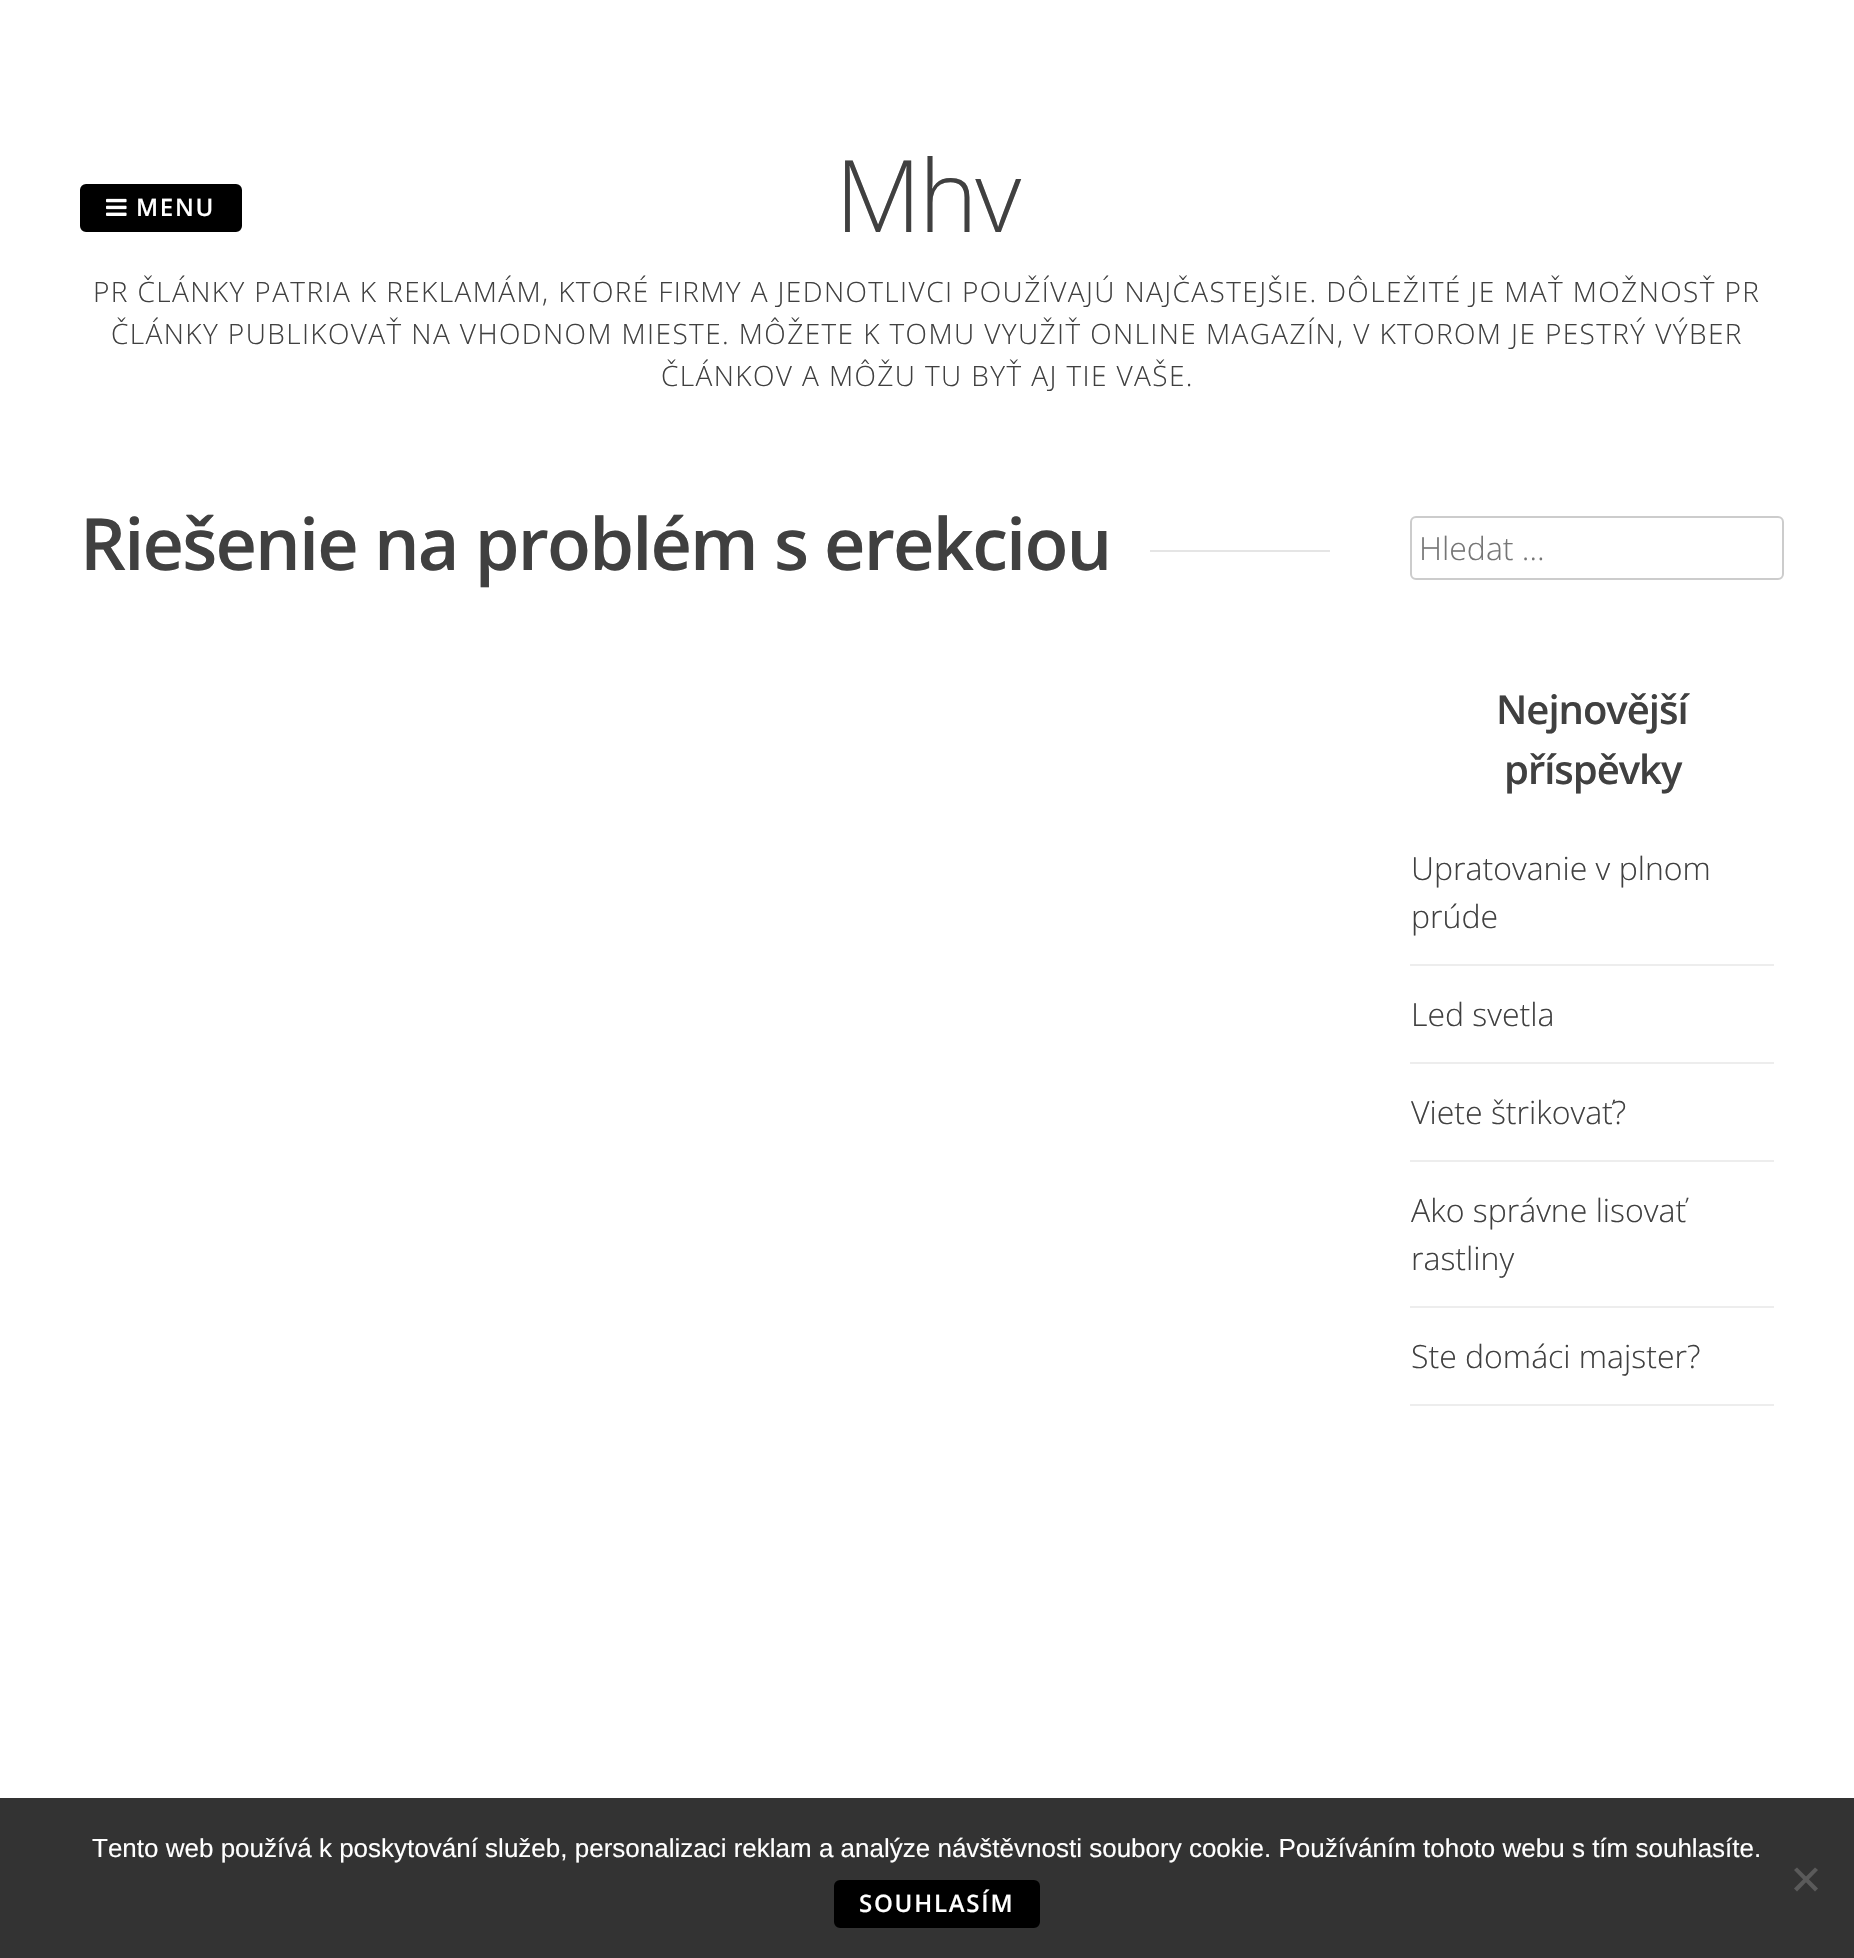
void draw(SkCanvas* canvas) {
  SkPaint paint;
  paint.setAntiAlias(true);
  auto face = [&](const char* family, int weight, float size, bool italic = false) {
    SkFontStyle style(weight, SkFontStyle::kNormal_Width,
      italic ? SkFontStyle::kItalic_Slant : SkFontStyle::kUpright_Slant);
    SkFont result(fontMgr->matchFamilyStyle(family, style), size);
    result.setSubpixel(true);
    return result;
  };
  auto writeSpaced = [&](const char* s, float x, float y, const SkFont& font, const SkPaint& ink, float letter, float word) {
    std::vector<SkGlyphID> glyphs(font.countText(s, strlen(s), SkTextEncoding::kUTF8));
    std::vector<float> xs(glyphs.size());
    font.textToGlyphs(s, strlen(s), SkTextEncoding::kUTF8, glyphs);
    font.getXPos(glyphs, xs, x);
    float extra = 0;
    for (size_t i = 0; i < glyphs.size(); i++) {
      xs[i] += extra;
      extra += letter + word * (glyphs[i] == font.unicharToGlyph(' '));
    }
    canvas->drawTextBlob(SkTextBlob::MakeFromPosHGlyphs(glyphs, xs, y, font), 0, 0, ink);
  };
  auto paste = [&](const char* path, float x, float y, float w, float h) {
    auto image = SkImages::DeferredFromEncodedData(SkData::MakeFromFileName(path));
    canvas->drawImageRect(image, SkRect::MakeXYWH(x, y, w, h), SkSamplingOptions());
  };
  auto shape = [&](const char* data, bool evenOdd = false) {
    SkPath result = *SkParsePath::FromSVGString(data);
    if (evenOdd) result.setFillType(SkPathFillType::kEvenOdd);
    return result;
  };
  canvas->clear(0xffffffff);
  paint.setColor(0xff000000);
  canvas->drawRoundRect(SkRect::MakeXYWH(81, 185, 160, 46), 5, 5, paint);
  paint.setStroke(true);
  paint.setStrokeWidth(2);
  canvas->drawRoundRect(SkRect::MakeXYWH(81, 185, 160, 46), 5, 5, paint);
  paste("img/1.png", 106, 198, 21, 18);
  paint.setStroke(false);
  paint.setColor(0xffe5e5e5);
  canvas->drawRect(SkRect::MakeXYWH(1150, 550, 180, 2), paint);
  paint.setStroke(true);
  paint.setColor(0xffcccccc);
  canvas->drawRoundRect(SkRect::MakeXYWH(1411, 517, 372, 62), 5, 5, paint);
  paint.setStroke(false);
  {
    const struct { float x, y, w, h; SkColor color; } items[] = {
      {1410, 964, 364, 2, 0xffededed},
      {1410, 1062, 364, 2, 0xffededed},
      {1410, 1160, 364, 2, 0xffededed},
      {1410, 1306, 364, 2, 0xffededed},
      {1410, 1404, 364, 2, 0xffededed},
      {0, 1798, 1854, 160, 0xff333333},
    };
    for (auto [x, y, w, h, color] : items) {
      paint.setColor(color);
      canvas->drawRect(SkRect::MakeXYWH(x, y, w, h), paint);
    }
  }
  paint.setColor(0xff5a5a5a);
  canvas->drawPath(shape("M1815 1867.5L1818 1870L1797 1891.5L1794 1888.5Z"), paint);
  canvas->drawPath(shape("M1794 1870L1797 1867.5L1818 1888.5L1815 1891.5Z"), paint);
  paint.setColor(0xff000000);
  canvas->drawRoundRect(SkRect::MakeXYWH(835, 1881, 204, 46), 5, 5, paint);
  paint.setStroke(true);
  canvas->drawRoundRect(SkRect::MakeXYWH(835, 1881, 204, 46), 5, 5, paint);
  auto f0 = face("Open Sans", 300, 100);
  paint.setStroke(false);
  paint.setColor(0xff404040);
  writeSpaced("Mhv", 835, 232, f0, paint, -2.5f, 0);
  auto f1 = face("Open Sans", 300, 28);
  {
    const struct { const char* s; float x, y; } items[] = {
      {"PR ČLÁNKY PATRIA K REKLAMÁM, KTORÉ FIRMY A JEDNOTLIVCI POUŽÍVAJÚ NAJČASTEJŠIE. DÔLEŽITÉ JE MAŤ MOŽNOSŤ PR", 93, 302},
      {"ČLÁNKY PUBLIKOVAŤ NA VHODNOM MIESTE. MÔŽETE K TOMU VYUŽIŤ ONLINE MAGAZÍN, V KTOROM JE PESTRÝ VÝBER", 111, 344},
      {"ČLÁNKOV A MÔŽU TU BYŤ AJ TIE VAŠE.", 661, 386},
    };
    for (auto [s, x, y] : items) {
      writeSpaced(s, x, y, f1, paint, 1.4f, 0);
    }
  }
  auto f2 = face("Open Sans", 600, 24);
  paint.setColor(0xffffffff);
  writeSpaced("MENU", 136, 216, f2, paint, 1.75f, 0);
  auto f3 = face("Open Sans", 600, 72);
  paint.setColor(0xff404040);
  writeSpaced("Riešenie na problém s erekciou", 80, 570, f3, paint, -1.8f, 0);
  auto f4 = face("Open Sans", 300, 32);
  paint.setColor(0xff757575);
  canvas->drawString("Hledat …", 1419, 560, f4, paint);
  auto f5 = face("Open Sans", 600, 40);
  paint.setColor(0xff404040);
  writeSpaced("Nejnovější", 1496, 724, f5, paint, -1, 0);
  writeSpaced("příspěvky", 1504, 784, f5, paint, -1, 0);
  {
    const struct { const char* s; float x, y; } items[] = {
      {"Upratovanie v plnom", 1411, 880},
      {"prúde", 1411, 928},
      {"Led svetla", 1411, 1026},
      {"Viete štrikovať?", 1411, 1124},
      {"Ako správne lisovať", 1411, 1222},
      {"rastliny", 1411, 1270},
      {"Ste domáci majster?", 1411, 1368},
    };
    for (auto [s, x, y] : items) {
      canvas->drawString(s, x, y, f4, paint);
    }
  }
  auto f6 = face("Liberation Sans", 400, 26);
  paint.setColor(0xffffffff);
  canvas->drawString("Tento web používá k poskytování služeb, personalizaci reklam a analýze návštěvnosti soubory cookie. Používáním tohoto webu s tím souhlasíte.", 92, 1857, f6, paint);
  writeSpaced("SOUHLASÍM", 859, 1912, f2, paint, 1.75f, 0);
}
